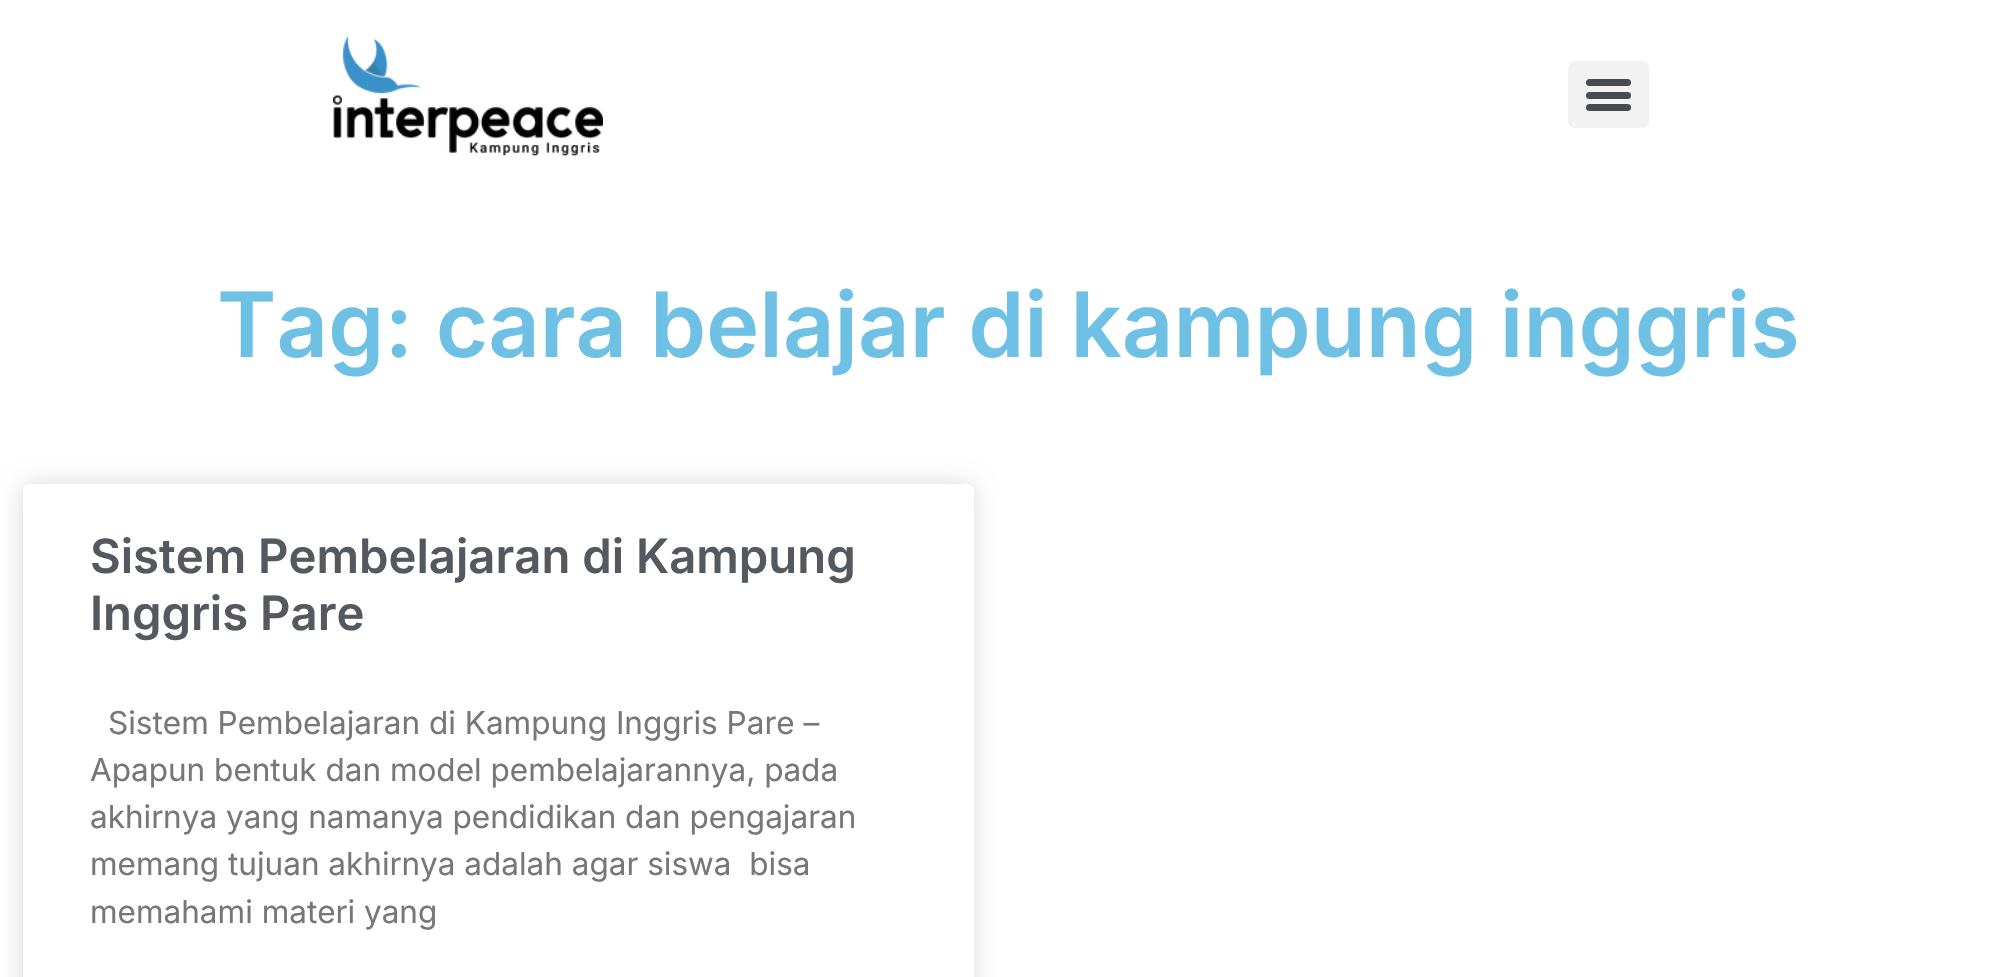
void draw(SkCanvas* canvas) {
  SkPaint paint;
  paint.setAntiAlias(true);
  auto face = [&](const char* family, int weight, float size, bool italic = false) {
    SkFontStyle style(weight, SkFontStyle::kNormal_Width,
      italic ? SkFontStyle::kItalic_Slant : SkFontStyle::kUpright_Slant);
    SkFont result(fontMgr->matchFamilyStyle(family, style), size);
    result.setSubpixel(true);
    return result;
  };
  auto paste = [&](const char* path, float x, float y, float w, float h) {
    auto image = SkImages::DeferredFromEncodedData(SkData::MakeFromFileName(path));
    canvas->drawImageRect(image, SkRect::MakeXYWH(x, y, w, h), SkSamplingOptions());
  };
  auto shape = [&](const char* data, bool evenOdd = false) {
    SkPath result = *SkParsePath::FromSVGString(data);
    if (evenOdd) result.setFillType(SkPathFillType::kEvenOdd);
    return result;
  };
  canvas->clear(0xffffffff);
  paste("img/1.png", 333, 36, 270, 120);
  paint.setColor(0xfff2f2f2);
  canvas->drawRoundRect(SkRect::MakeXYWH(1568, 61, 81, 67), 7, 7, paint);
  paint.setColor(0xff494c4f);
  canvas->drawRoundRect(SkRect::MakeXYWH(1586, 92, 45, 7), 3.5f, 3.5f, paint);
  canvas->drawRoundRect(SkRect::MakeXYWH(1586, 79, 45, 7), 3.5f, 3.5f, paint);
  canvas->drawRoundRect(SkRect::MakeXYWH(1586, 104, 45, 7), 3.5f, 3.5f, paint);
  canvas->save();
  canvas->clipPath(shape("M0 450H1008V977H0ZM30 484H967C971 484 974 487 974 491V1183C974 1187 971 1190 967 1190H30C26 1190 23 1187 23 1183V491C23 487 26 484 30 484Z", true), true);
  paint.setColor(0x26000000);
  paint.setMaskFilter(SkMaskFilter::MakeBlur(kNormal_SkBlurStyle, 11));
  canvas->drawRoundRect(SkRect::MakeXYWH(23, 484, 951, 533), 7, 7, paint);
  paint.setMaskFilter(nullptr);
  canvas->restore();
  auto f0 = face("Inter", 600, 90);
  paint.setColor(0xff6ec1e4);
  canvas->drawString("Tag: cara belajar di kampung inggris", 217, 357, f0, paint);
  auto f1 = face("Inter", 600, 47.25f);
  paint.setColor(0xff54595f);
  canvas->drawString("Sistem Pembelajaran di Kampung", 90, 573, f1, paint);
  canvas->drawString("Inggris Pare", 90, 630, f1, paint);
  auto f2 = face("Inter", 400, 31.5f);
  paint.setColor(0xff777777);
  {
    const struct { const char* s; float x, y; } items[] = {
      {"Sistem Pembelajaran di Kampung Inggris Pare –", 108, 734},
      {"Apapun bentuk dan model pembelajarannya, pada", 90, 781},
      {"akhirnya yang namanya pendidikan dan pengajaran", 90, 828},
      {"memang tujuan akhirnya adalah agar siswa  bisa", 90, 875},
      {"memahami materi yang", 90, 923},
    };
    for (auto [s, x, y] : items) {
      canvas->drawString(s, x, y, f2, paint);
    }
  }
}
